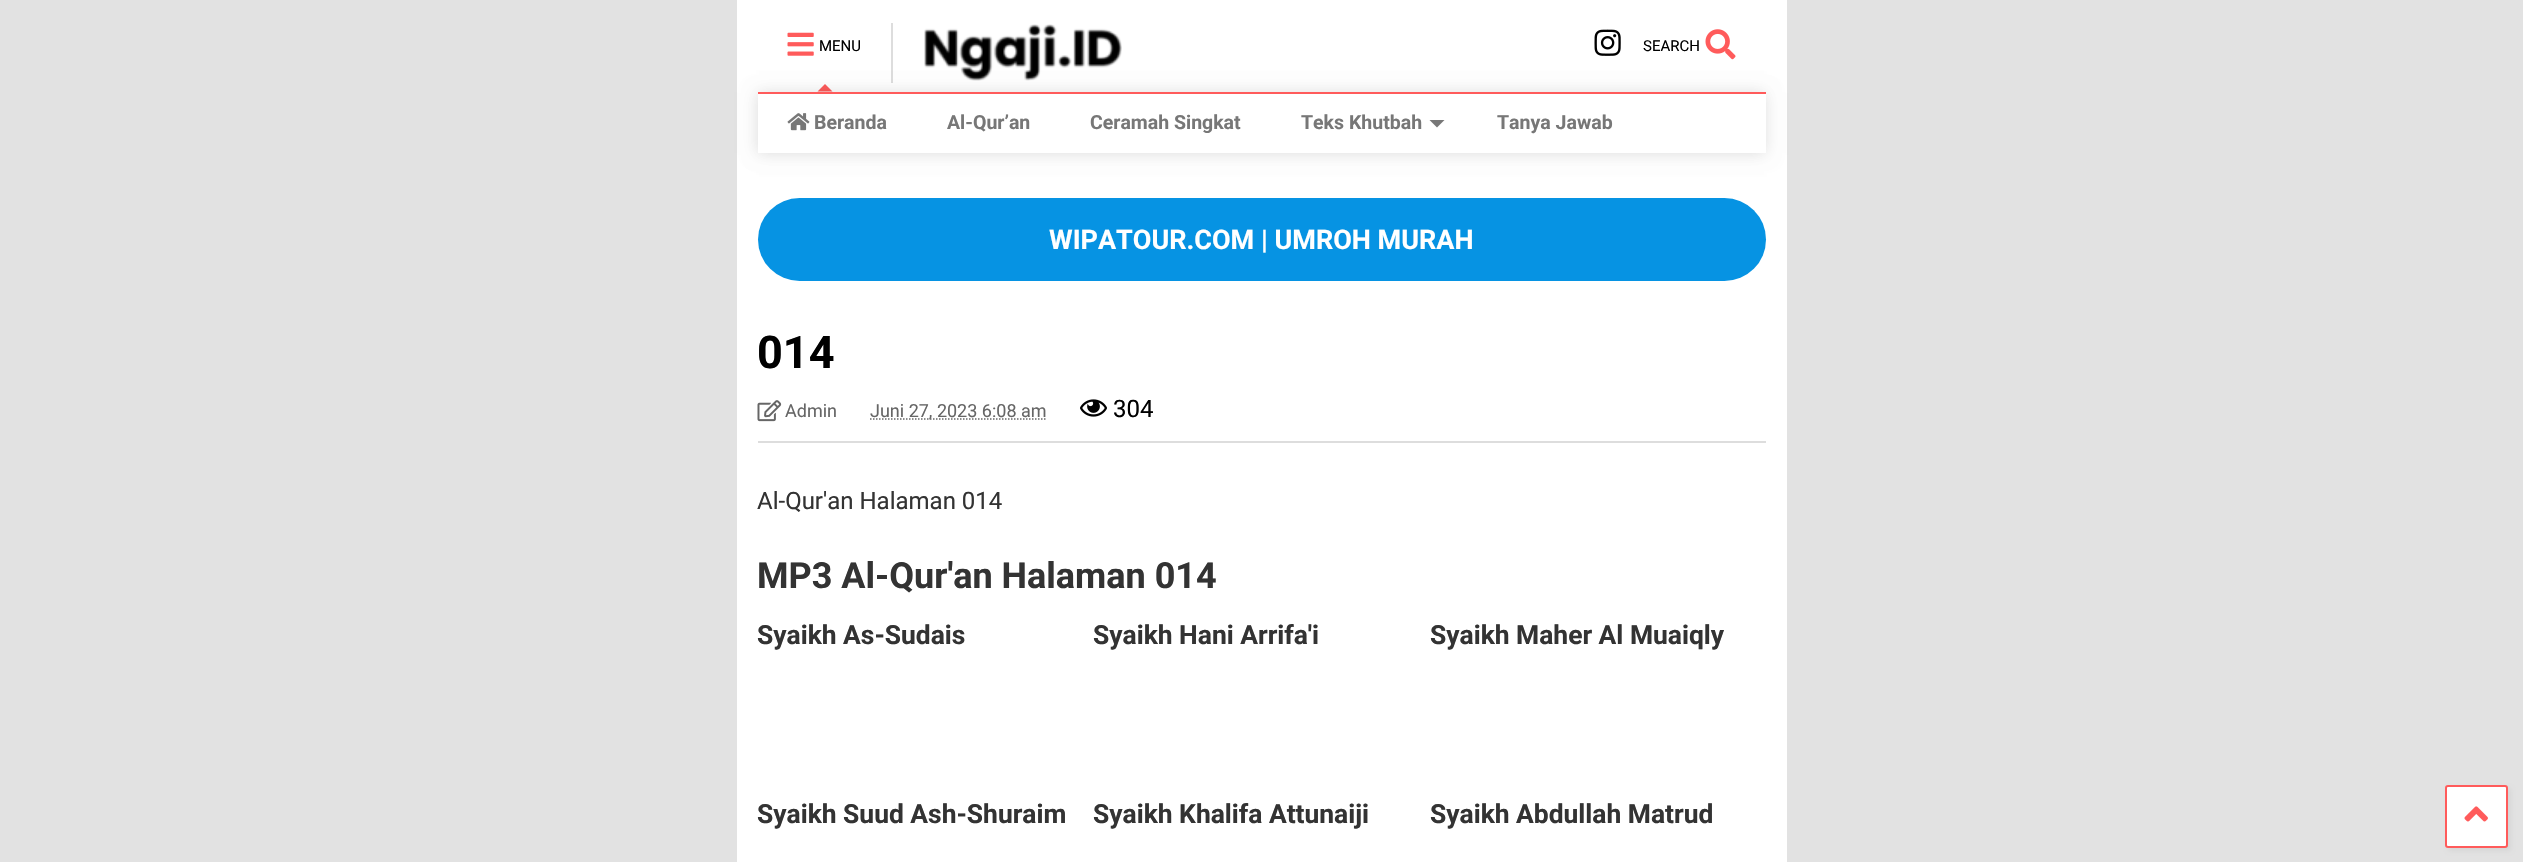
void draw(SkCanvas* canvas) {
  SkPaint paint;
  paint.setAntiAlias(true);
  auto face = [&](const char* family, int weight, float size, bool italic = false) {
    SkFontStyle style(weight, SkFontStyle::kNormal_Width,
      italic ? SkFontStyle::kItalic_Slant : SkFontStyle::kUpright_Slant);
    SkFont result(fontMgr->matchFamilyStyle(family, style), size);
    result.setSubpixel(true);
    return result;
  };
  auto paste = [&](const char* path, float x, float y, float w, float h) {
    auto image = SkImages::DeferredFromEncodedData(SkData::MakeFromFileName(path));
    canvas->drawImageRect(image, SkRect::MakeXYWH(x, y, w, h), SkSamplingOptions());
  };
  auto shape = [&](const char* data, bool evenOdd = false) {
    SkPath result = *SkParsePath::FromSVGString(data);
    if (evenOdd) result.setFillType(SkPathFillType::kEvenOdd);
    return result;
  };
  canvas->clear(0xffe2e2e2);
  paint.setColor(0xffffffff);
  canvas->drawRect(SkRect::MakeXYWH(737, 0, 1050, 862), paint);
  paste("img/1.png", 787, 32, 27, 24);
  paint.setColor(0xffff5b5b);
  canvas->drawPath(shape("M832.5 91.5H817.5L825 84Z"), paint);
  paint.setColor(0xffdddddd);
  canvas->drawRect(SkRect::MakeXYWH(891, 23, 2, 60), paint);
  paste("img/2.png", 924, 24, 198, 57);
  paste("img/3.png", 1594, 29, 27, 27);
  paste("img/4.png", 1705, 29, 31, 31);
  paint.setColor(0x14000000);
  paint.setMaskFilter(SkMaskFilter::MakeBlur(kNormal_SkBlurStyle, 7.5f));
  canvas->drawRect(SkRect::MakeXYWH(756, 92, 1008, 61), paint);
  paint.setMaskFilter(nullptr);
  paint.setColor(0x0d000000);
  paint.setMaskFilter(SkMaskFilter::MakeBlur(kNormal_SkBlurStyle, 7.5f));
  canvas->drawRect(SkRect::MakeXYWH(759, 93, 1008, 62), paint);
  paint.setMaskFilter(nullptr);
  paint.setColor(0xffffffff);
  canvas->drawRect(SkRect::MakeXYWH(758, 94, 1008, 59), paint);
  paint.setColor(0xffff5b5b);
  canvas->drawRect(SkRect::MakeXYWH(758, 92, 1008, 2), paint);
  paste("img/5.png", 787, 113, 23, 18);
  paint.setColor(0xff777777);
  canvas->drawPath(shape("M1429.5 120H1444.5L1437 127.5Z"), paint);
  paint.setColor(0xff0693e3);
  canvas->drawRoundRect(SkRect::MakeXYWH(758, 198, 1008, 83), 41.5f, 41.5f, paint);
  paint.setColor(0xffdddddd);
  canvas->drawRect(SkRect::MakeXYWH(758, 441, 1008, 2), paint);
  paste("img/6.png", 757, 400, 25, 22);
  paint.setStroke(true);
  paint.setStrokeWidth(1.5f);
  paint.setColor(0xff666666);
  paint.setPathEffect(SkDashPathEffect::Make({{1.5f, 1.5f}}, 0));
  canvas->drawPath(shape("M870 419H1046.5"), paint);
  paint.setPathEffect(nullptr);
  paste("img/7.png", 1080, 399, 27, 18);
  paint.setStroke(false);
  paint.setColor(0x0d000000);
  paint.setMaskFilter(SkMaskFilter::MakeBlur(kNormal_SkBlurStyle, 2));
  canvas->drawRoundRect(SkRect::MakeXYWH(2448, 788, 63, 63), 3, 3, paint);
  paint.setMaskFilter(nullptr);
  paint.setColor(0xffffffff);
  canvas->drawRoundRect(SkRect::MakeXYWH(2446, 786, 61, 61), 2, 2, paint);
  paint.setStroke(true);
  paint.setStrokeWidth(2);
  paint.setColor(0xffff5b5b);
  canvas->drawRoundRect(SkRect::MakeXYWH(2446, 786, 61, 61), 2, 2, paint);
  paste("img/8.png", 2464, 806, 24, 16);
  auto f0 = face("Roboto", 400, 15);
  paint.setStroke(false);
  paint.setColor(0xff000000);
  canvas->drawString("MENU", 819, 51, f0, paint);
  canvas->drawString("SEARCH", 1643, 51, f0, paint);
  auto f1 = face("Roboto", 700, 19.5f);
  paint.setColor(0xff777777);
  {
    const struct { const char* s; float x, y; } items[] = {
      {"Beranda", 814, 129},
      {"Al-Qur’an", 947, 129},
      {"Ceramah Singkat", 1090, 129},
      {"Teks Khutbah", 1301, 129},
      {"Tanya Jawab", 1497, 129},
    };
    for (auto [s, x, y] : items) {
      canvas->drawString(s, x, y, f1, paint);
    }
  }
  auto f2 = face("Roboto", 700, 27);
  paint.setColor(0xffffffff);
  canvas->drawString("WIPATOUR.COM | UMROH MURAH", 1049, 249, f2, paint);
  auto f3 = face("Roboto", 700, 45);
  paint.setColor(0xff000000);
  canvas->drawString("014", 757, 368, f3, paint);
  auto f4 = face("Roboto", 400, 18);
  paint.setColor(0xff666666);
  canvas->drawString("Admin", 785, 417, f4, paint);
  canvas->drawString("Juni 27, 2023 6:08 am", 870, 417, f4, paint);
  auto f5 = face("Roboto", 400, 24);
  paint.setColor(0xff000000);
  canvas->drawString("304", 1113, 417, f5, paint);
  paint.setColor(0xff333333);
  canvas->drawString("Al-Qur'an Halaman 014", 757, 509, f5, paint);
  auto f6 = face("Roboto", 700, 36);
  canvas->drawString("MP3 Al-Qur'an Halaman 014", 757, 588, f6, paint);
  auto f7 = face("Roboto", 700, 26.4f);
  {
    const struct { const char* s; float x, y; } items[] = {
      {"Syaikh As-Sudais", 757, 644},
      {"Syaikh Suud Ash-Shuraim", 757, 823},
      {"Syaikh Hani Arrifa'i", 1093, 644},
      {"Syaikh Khalifa Attunaiji", 1093, 823},
      {"Syaikh Maher Al Muaiqly", 1430, 644},
      {"Syaikh Abdullah Matrud", 1430, 823},
    };
    for (auto [s, x, y] : items) {
      canvas->drawString(s, x, y, f7, paint);
    }
  }
}
